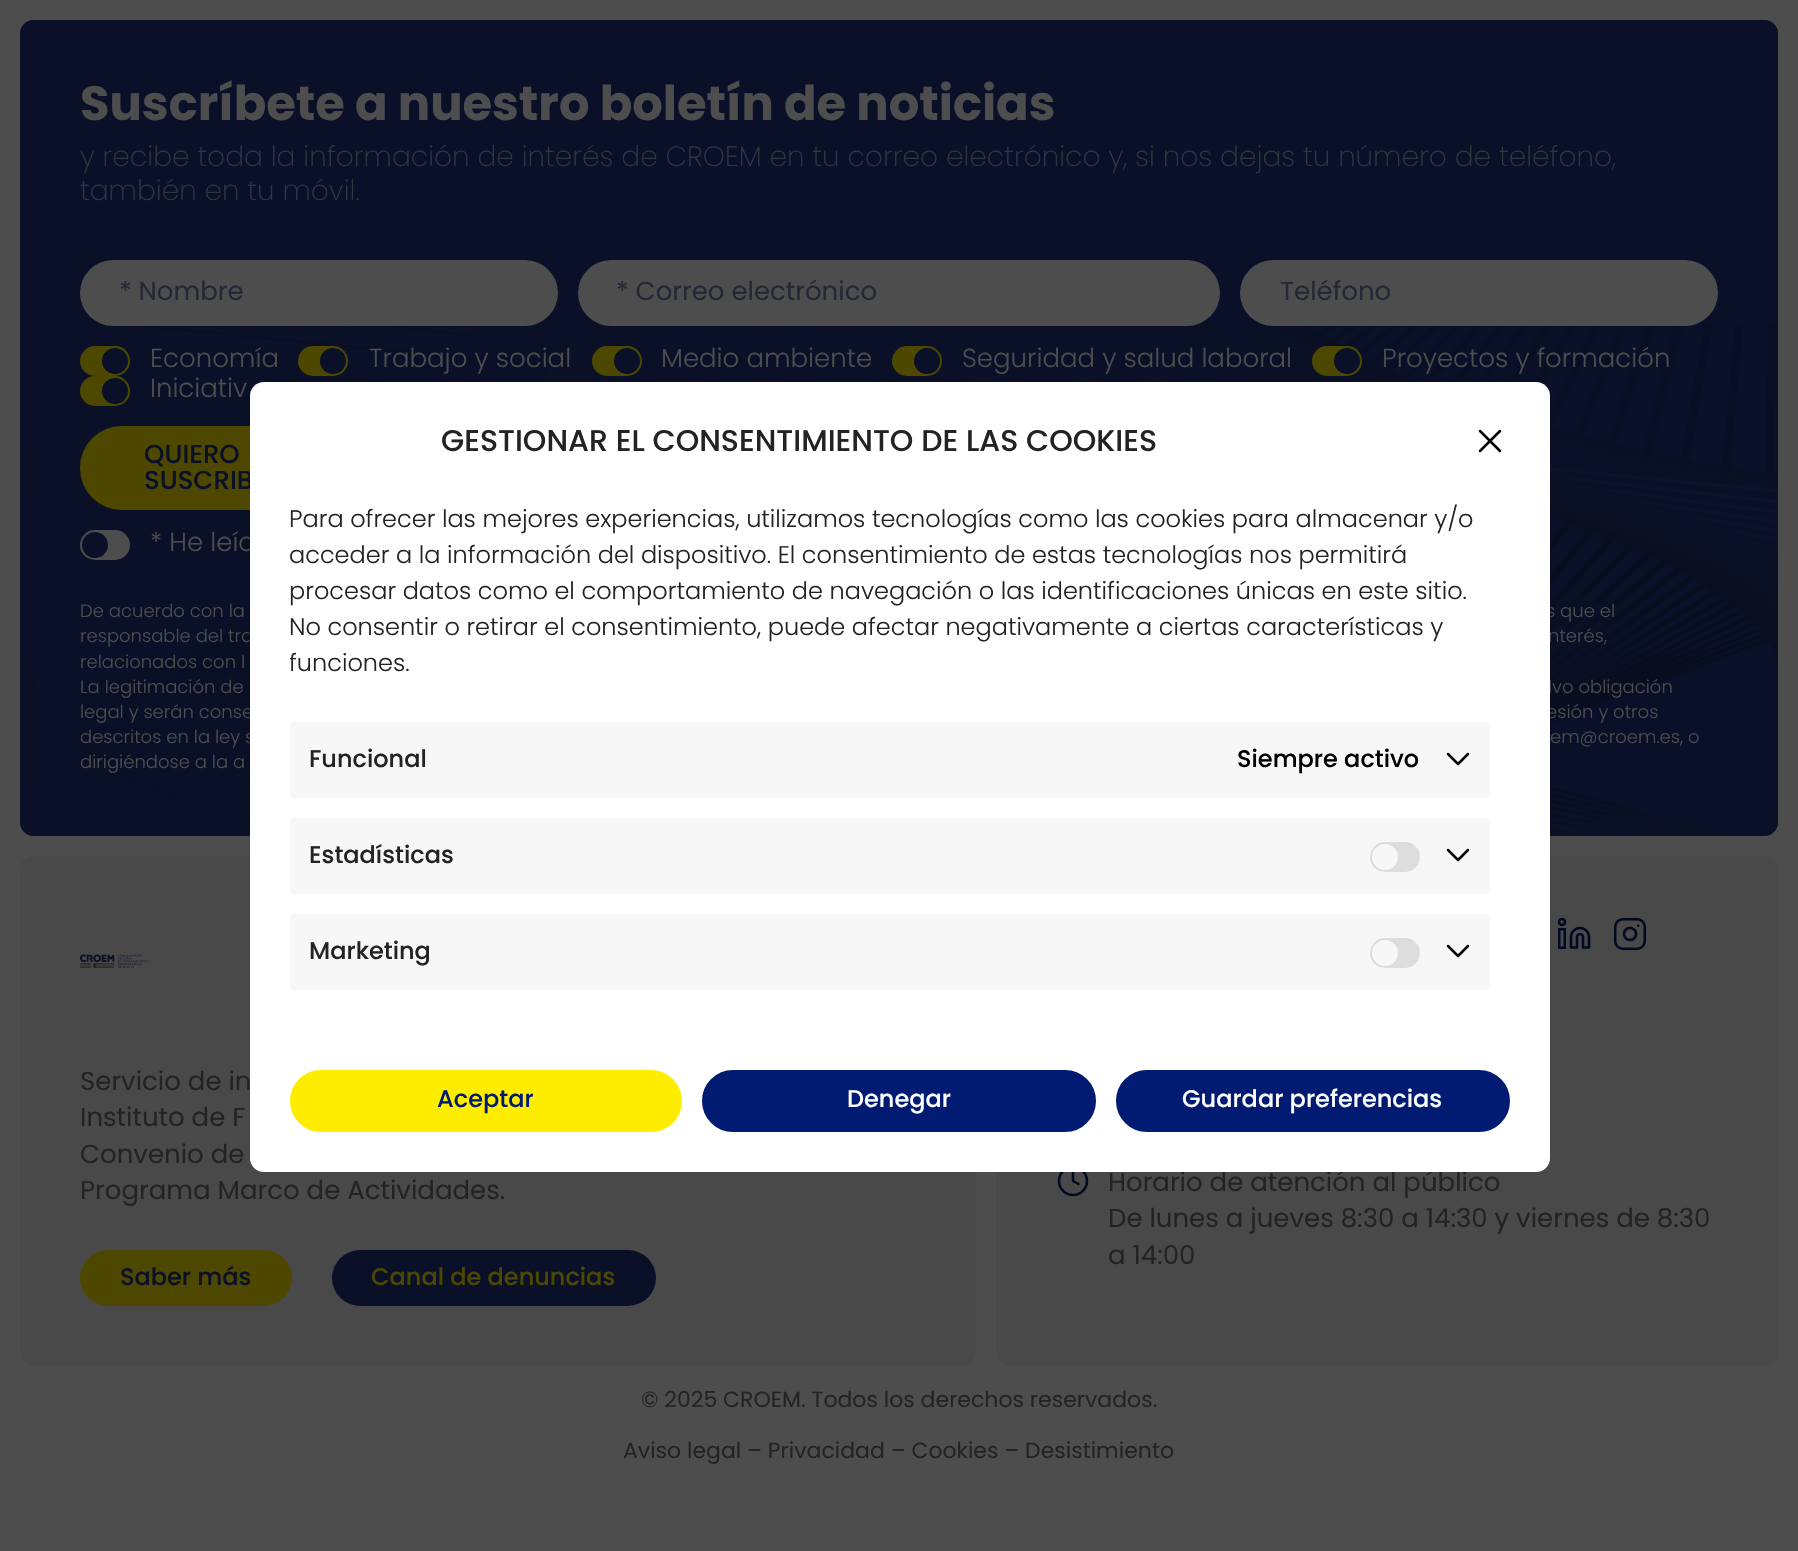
void draw(SkCanvas* canvas) {
  SkPaint paint;
  paint.setAntiAlias(true);
  auto face = [&](const char* family, int weight, float size, bool italic = false) {
    SkFontStyle style(weight, SkFontStyle::kNormal_Width,
      italic ? SkFontStyle::kItalic_Slant : SkFontStyle::kUpright_Slant);
    SkFont result(fontMgr->matchFamilyStyle(family, style), size);
    result.setSubpixel(true);
    return result;
  };
  auto paste = [&](const char* path, float x, float y, float w, float h) {
    auto image = SkImages::DeferredFromEncodedData(SkData::MakeFromFileName(path));
    canvas->drawImageRect(image, SkRect::MakeXYWH(x, y, w, h), SkSamplingOptions());
  };
  auto shape = [&](const char* data, bool evenOdd = false) {
    SkPath result = *SkParsePath::FromSVGString(data);
    if (evenOdd) result.setFillType(SkPathFillType::kEvenOdd);
    return result;
  };
  canvas->clear(0xff4d4d4d);
  paint.setColor(0xff091027);
  canvas->drawRoundRect(SkRect::MakeXYWH(20, 20, 1758, 816), 14, 14, paint);
  paste("img/1.png", 20, 324, 1758, 510);
  paint.setColor(0xc7091027);
  canvas->drawRoundRect(SkRect::MakeXYWH(20, 20, 1758, 816), 14, 14, paint);
  paint.setColor(0xff4d4d4d);
  canvas->drawRoundRect(SkRect::MakeXYWH(80, 260, 478, 66), 33, 33, paint);
  canvas->drawRoundRect(SkRect::MakeXYWH(578, 260, 642, 66), 33, 33, paint);
  canvas->drawRoundRect(SkRect::MakeXYWH(1240, 260, 478, 66), 33, 33, paint);
  paint.setColor(0xff4d4700);
  canvas->drawRoundRect(SkRect::MakeXYWH(80, 346, 50, 30), 15, 15, paint);
  paint.setColor(0xff091027);
  canvas->drawCircle(115, 361, 13, paint);
  paint.setColor(0xff4d4700);
  canvas->drawRoundRect(SkRect::MakeXYWH(298, 346, 50, 30), 15, 15, paint);
  paint.setColor(0xff091027);
  canvas->drawCircle(333, 361, 13, paint);
  paint.setColor(0xff4d4700);
  canvas->drawRoundRect(SkRect::MakeXYWH(592, 346, 50, 30), 15, 15, paint);
  paint.setColor(0xff091027);
  canvas->drawCircle(627, 361, 13, paint);
  paint.setColor(0xff4d4700);
  canvas->drawRoundRect(SkRect::MakeXYWH(892, 346, 50, 30), 15, 15, paint);
  paint.setColor(0xff091027);
  canvas->drawCircle(927, 361, 13, paint);
  paint.setColor(0xff4d4700);
  canvas->drawRoundRect(SkRect::MakeXYWH(1312, 346, 50, 30), 15, 15, paint);
  paint.setColor(0xff091027);
  canvas->drawCircle(1347, 361, 13, paint);
  paint.setColor(0xff4d4700);
  canvas->drawRoundRect(SkRect::MakeXYWH(80, 376, 50, 30), 15, 15, paint);
  paint.setColor(0xff091027);
  canvas->drawCircle(115, 391, 13, paint);
  paint.setColor(0xff4d4700);
  canvas->drawRoundRect(SkRect::MakeXYWH(82, 428, 390, 80), 40, 40, paint);
  paint.setStroke(true);
  paint.setStrokeWidth(4);
  canvas->drawRoundRect(SkRect::MakeXYWH(82, 428, 390, 80), 40, 40, paint);
  paint.setStroke(false);
  paint.setColor(0xff4d4d4d);
  canvas->drawRoundRect(SkRect::MakeXYWH(80, 530, 50, 30), 15, 15, paint);
  paint.setColor(0xff091027);
  canvas->drawCircle(95, 545, 13, paint);
  paint.setColor(0xff494949);
  canvas->drawRoundRect(SkRect::MakeXYWH(20, 856, 956, 510), 14, 14, paint);
  paste("img/2.png", 80, 954, 68, 14);
  paint.setColor(0xff4d4700);
  canvas->drawRoundRect(SkRect::MakeXYWH(80, 1250, 212, 56), 28, 28, paint);
  paint.setColor(0xff091027);
  canvas->drawRoundRect(SkRect::MakeXYWH(332, 1250, 324, 56), 28, 28, paint);
  paint.setColor(0xff494949);
  canvas->drawRoundRect(SkRect::MakeXYWH(996, 856, 782, 510), 14, 14, paint);
  paste("img/3.png", 1557, 917, 34, 32);
  paste("img/4.png", 1614, 918, 32, 32);
  paint.setStroke(true);
  paint.setStrokeWidth(2.5f);
  paint.setColor(0xff000822);
  canvas->drawCircle(1073, 1181, 14, paint);
  paint.setStrokeCap(SkPaint::kRound_Cap);
  paint.setStrokeJoin(SkPaint::kRound_Join);
  canvas->drawPath(shape("M1073 1172.5V1181L1078.5 1184"), paint);
  auto f0 = face("Poppins", 700, 48);
  paint.setStroke(false);
  paint.setColor(0xff4d4d4d);
  canvas->drawString("Suscríbete a nuestro boletín de noticias", 80, 120, f0, paint);
  auto f1 = face("Poppins", 200, 28);
  paint.setColor(0xff32343e);
  canvas->drawString("y recibe toda la información de interés de CROEM en tu correo electrónico y, si nos dejas tu número de teléfono,", 80, 166, f1, paint);
  canvas->drawString("también en tu móvil.", 80, 200, f1, paint);
  auto f2 = face("Poppins", 400, 26);
  paint.setColor(0xff242836);
  {
    const struct { const char* s; float x, y; } items[] = {
      {"* Nombre", 119, 300},
      {"* Correo electrónico", 616, 300},
      {"Teléfono", 1280, 300},
    };
    for (auto [s, x, y] : items) {
      canvas->drawString(s, x, y, f2, paint);
    }
  }
  auto f3 = face("Poppins", 300, 26);
  paint.setColor(0xff4d4d4d);
  {
    const struct { const char* s; float x, y; } items[] = {
      {"Economía", 150, 367},
      {"Trabajo y social", 369, 367},
      {"Medio ambiente", 661, 367},
      {"Seguridad y salud laboral", 962, 367},
      {"Proyectos y formación", 1382, 367},
      {"Iniciativ", 150, 397},
    };
    for (auto [s, x, y] : items) {
      canvas->drawString(s, x, y, f3, paint);
    }
  }
  auto f4 = face("Poppins", 500, 26);
  paint.setColor(0xff091027);
  canvas->drawString("QUIERO", 144, 463, f4, paint);
  canvas->drawString("SUSCRIB", 144, 489, f4, paint);
  paint.setColor(0xff4d4d4d);
  canvas->drawString("* He leíd", 150, 551, f3, paint);
  auto f5 = face("Poppins", 300, 18);
  {
    const struct { const char* s; float x, y; } items[] = {
      {"De acuerdo con la", 80, 617},
      {"s que el", 1546, 617},
      {"responsable del tra", 80, 642},
      {"nterés,", 1548, 642},
      {"relacionados con l", 80, 668},
      {"La legitimación de", 80, 693},
      {"lvo obligación", 1548, 693},
      {"legal y serán conse", 80, 718},
      {"esión y otros", 1546, 718},
      {"descritos en la ley s", 80, 743},
      {"em@croem.es, o", 1550, 743},
      {"dirigiéndose a la a", 80, 768},
    };
    for (auto [s, x, y] : items) {
      canvas->drawString(s, x, y, f5, paint);
    }
  }
  paint.setColor(0xff232323);
  {
    const struct { const char* s; float x, y; } items[] = {
      {"Servicio de in", 80, 1090},
      {"Instituto de F", 80, 1126},
      {"Convenio de", 80, 1163},
      {"Programa Marco de Actividades.", 80, 1199},
    };
    for (auto [s, x, y] : items) {
      canvas->drawString(s, x, y, f2, paint);
    }
  }
  auto f6 = face("Poppins", 500, 24);
  paint.setColor(0xff091027);
  canvas->drawString("Saber más", 120, 1285, f6, paint);
  paint.setColor(0xff4d4700);
  canvas->drawString("Canal de denuncias", 371, 1285, f6, paint);
  paint.setColor(0xff232323);
  {
    const struct { const char* s; float x, y; } items[] = {
      {"Horario de atención al público", 1108, 1191},
      {"De lunes a jueves 8:30 a 14:30 y viernes de 8:30", 1108, 1227},
      {"a 14:00", 1108, 1264},
    };
    for (auto [s, x, y] : items) {
      canvas->drawString(s, x, y, f2, paint);
    }
  }
  auto f7 = face("Poppins", 400, 22);
  canvas->drawString("© 2025 CROEM. Todos los derechos reservados.", 641, 1407, f7, paint);
  canvas->drawString("Aviso legal – Privacidad – Cookies – Desistimiento", 623, 1458, f7, paint);
  paint.setColor(0xffffffff);
  canvas->drawRoundRect(SkRect::MakeXYWH(250, 382, 1300, 790), 14, 14, paint);
  auto f8 = face("Poppins", 500, 30);
  paint.setColor(0xff232323);
  canvas->drawString("GESTIONAR EL CONSENTIMIENTO DE LAS COOKIES", 441, 451, f8, paint);
  paint.setStroke(true);
  paint.setColor(0xff000000);
  canvas->drawPath(shape("M1500 431L1480 451M1480 431L1500 451"), paint);
  auto f9 = face("Poppins", 300, 24);
  paint.setStroke(false);
  paint.setColor(0xff232323);
  {
    const struct { const char* s; float x, y; } items[] = {
      {"Para ofrecer las mejores experiencias, utilizamos tecnologías como las cookies para almacenar y/o", 289, 527},
      {"acceder a la información del dispositivo. El consentimiento de estas tecnologías nos permitirá", 289, 563},
      {"procesar datos como el comportamiento de navegación o las identificaciones únicas en este sitio.", 289, 599},
      {"No consentir o retirar el consentimiento, puede afectar negativamente a ciertas características y", 289, 635},
    };
    for (auto [s, x, y] : items) {
      canvas->drawString(s, x, y, f9, paint);
    }
  }
  canvas->save();
  canvas->clipRect(SkRect::MakeXYWH(290, 502, 1220, 488));
  canvas->drawString("funciones.", 289, 671, f9, paint);
  canvas->restore();
  paint.setColor(0xfff7f7f7);
  canvas->drawRect(SkRect::MakeXYWH(290, 722, 1200, 76), paint);
  paint.setColor(0xff232323);
  canvas->drawString("Funcional", 309, 767, f6, paint);
  paint.setColor(0xff000000);
  canvas->drawString("Siempre activo", 1237, 767, f6, paint);
  paint.setStroke(true);
  canvas->drawPath(shape("M1448 754L1458 764L1468 754"), paint);
  paint.setStroke(false);
  paint.setColor(0xfff7f7f7);
  canvas->drawRect(SkRect::MakeXYWH(290, 818, 1200, 76), paint);
  paint.setColor(0xff232323);
  canvas->drawString("Estadísticas", 309, 863, f6, paint);
  paint.setColor(0xffdddddd);
  canvas->drawRoundRect(SkRect::MakeXYWH(1370, 842, 50, 30), 15, 15, paint);
  paint.setColor(0xfff7f7f7);
  canvas->drawCircle(1385, 857, 13, paint);
  paint.setStroke(true);
  paint.setColor(0xff000000);
  canvas->drawPath(shape("M1448 850L1458 860L1468 850"), paint);
  paint.setStroke(false);
  paint.setColor(0xfff7f7f7);
  canvas->drawRect(SkRect::MakeXYWH(290, 914, 1200, 76), paint);
  paint.setColor(0xff232323);
  canvas->drawString("Marketing", 309, 959, f6, paint);
  paint.setColor(0xffdddddd);
  canvas->drawRoundRect(SkRect::MakeXYWH(1370, 938, 50, 30), 15, 15, paint);
  paint.setColor(0xfff7f7f7);
  canvas->drawCircle(1385, 953, 13, paint);
  paint.setStroke(true);
  paint.setColor(0xff000000);
  canvas->drawPath(shape("M1448 946L1458 956L1468 946"), paint);
  paint.setStroke(false);
  paint.setColor(0xffffed00);
  canvas->drawRoundRect(SkRect::MakeXYWH(291, 1071, 390, 60), 30, 30, paint);
  paint.setStroke(true);
  paint.setStrokeWidth(2);
  paint.setStrokeCap(SkPaint::kButt_Cap);
  paint.setStrokeJoin(SkPaint::kMiter_Join);
  canvas->drawRoundRect(SkRect::MakeXYWH(291, 1071, 390, 60), 30, 30, paint);
  paint.setStroke(false);
  paint.setColor(0xff001b71);
  canvas->drawString("Aceptar", 437, 1107, f6, paint);
  canvas->drawRoundRect(SkRect::MakeXYWH(703, 1071, 392, 60), 30, 30, paint);
  paint.setStroke(true);
  canvas->drawRoundRect(SkRect::MakeXYWH(703, 1071, 392, 60), 30, 30, paint);
  paint.setStroke(false);
  paint.setColor(0xffffffff);
  canvas->drawString("Denegar", 847, 1107, f6, paint);
  paint.setColor(0xff001b71);
  canvas->drawRoundRect(SkRect::MakeXYWH(1117, 1071, 392, 60), 30, 30, paint);
  paint.setStroke(true);
  canvas->drawRoundRect(SkRect::MakeXYWH(1117, 1071, 392, 60), 30, 30, paint);
  paint.setStroke(false);
  paint.setColor(0xffffffff);
  canvas->drawString("Guardar preferencias", 1182, 1107, f6, paint);
}
